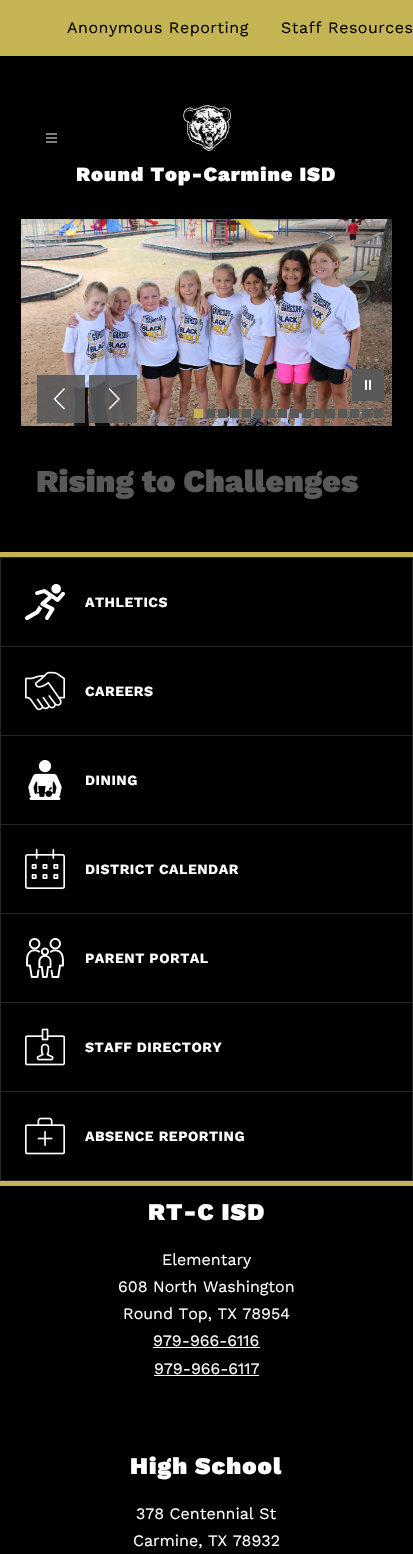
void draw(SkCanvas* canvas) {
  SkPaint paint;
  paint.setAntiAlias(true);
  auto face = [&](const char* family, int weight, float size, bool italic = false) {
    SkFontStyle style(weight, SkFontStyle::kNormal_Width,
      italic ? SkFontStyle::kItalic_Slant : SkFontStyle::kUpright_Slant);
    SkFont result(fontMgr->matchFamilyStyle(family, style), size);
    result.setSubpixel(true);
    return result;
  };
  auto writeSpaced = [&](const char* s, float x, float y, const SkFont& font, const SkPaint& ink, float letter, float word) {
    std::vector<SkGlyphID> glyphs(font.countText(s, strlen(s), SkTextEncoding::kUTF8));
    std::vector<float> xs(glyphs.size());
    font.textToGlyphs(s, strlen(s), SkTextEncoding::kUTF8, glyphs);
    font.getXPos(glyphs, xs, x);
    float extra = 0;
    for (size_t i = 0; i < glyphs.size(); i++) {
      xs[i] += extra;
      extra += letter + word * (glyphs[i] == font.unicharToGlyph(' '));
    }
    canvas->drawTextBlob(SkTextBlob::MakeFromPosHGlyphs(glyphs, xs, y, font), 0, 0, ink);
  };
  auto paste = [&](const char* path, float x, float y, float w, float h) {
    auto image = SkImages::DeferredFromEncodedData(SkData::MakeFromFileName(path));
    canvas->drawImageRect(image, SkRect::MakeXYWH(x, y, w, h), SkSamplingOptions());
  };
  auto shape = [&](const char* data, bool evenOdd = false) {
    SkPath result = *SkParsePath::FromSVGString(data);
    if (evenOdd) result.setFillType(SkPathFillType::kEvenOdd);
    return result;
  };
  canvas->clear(0xff000000);
  paste("img/3.png", 21, 219, 371, 207);
  paint.setColor(0x1a000000);
  paint.setMaskFilter(SkMaskFilter::MakeBlur(kNormal_SkBlurStyle, 5));
  canvas->drawRect(SkRect::MakeXYWH(0, 4, 413, 219), paint);
  paint.setMaskFilter(nullptr);
  paint.setColor(0xffc4b454);
  canvas->drawRect(SkRect::MakeXYWH(0, 0, 413, 56), paint);
  paste("img/1.png", 46, 133, 11, 10);
  paste("img/2.png", 183, 105, 48, 46);
  paint.setColor(0xff585959);
  canvas->drawRect(SkRect::MakeXYWH(352, 369, 32, 32), paint);
  paint.setColor(0xffffffff);
  canvas->drawPath(shape("M367 380H365V390H367ZM371 380H369V390H371Z", true), paint);
  {
    const struct { float x, y, w, h; SkColor color; } items[] = {
      {194, 409, 9, 9, 0xffc4b454},
      {206, 409, 9, 9, 0xff585959},
      {218, 409, 9, 9, 0xff585959},
      {230, 409, 9, 9, 0xff585959},
      {242, 409, 9, 9, 0xff585959},
      {254, 409, 9, 9, 0xff585959},
      {266, 409, 9, 9, 0xff585959},
      {278, 409, 9, 9, 0xff585959},
      {290, 409, 9, 9, 0xff585959},
      {302, 409, 9, 9, 0xff585959},
      {314, 409, 9, 9, 0xff585959},
      {326, 409, 9, 9, 0xff585959},
      {338, 409, 9, 9, 0xff585959},
      {350, 409, 9, 9, 0xff585959},
      {362, 409, 9, 9, 0xff585959},
      {374, 409, 9, 9, 0xff585959},
      {37, 375, 48, 48, 0xe6585959},
    };
    for (auto [x, y, w, h, color] : items) {
      paint.setColor(color);
      canvas->drawRect(SkRect::MakeXYWH(x, y, w, h), paint);
    }
  }
  paint.setColor(0xffffffff);
  canvas->drawPath(shape("M55.5 399L65 408.5L64 409.5L53.5 399L64 388L65 389Z", true), paint);
  paint.setColor(0xe6585959);
  canvas->drawRect(SkRect::MakeXYWH(89, 375, 48, 48), paint);
  paint.setColor(0xffffffff);
  canvas->drawPath(shape("M118 399L108.5 408.5L109.5 409.5L120 399L109.5 388L108.5 389Z", true), paint);
  paint.setColor(0xffc4b454);
  canvas->drawRect(SkRect::MakeXYWH(0, 552, 413, 5), paint);
  paint.setStroke(true);
  paint.setStrokeWidth(1);
  paint.setColor(0xff262626);
  canvas->drawRect(SkRect::MakeXYWH(0.5f, 557.5f, 412, 89), paint);
  paste("img/4.png", 25, 583, 40, 38);
  paint.setStroke(false);
  canvas->drawPath(shape("M413 647V736L412 735V647Z"), paint);
  paint.setColor(0x26ffffff);
  canvas->drawPath(shape("M413 736H0L1 735H412Z"), paint);
  canvas->drawPath(shape("M0 736V647H1V735Z"), paint);
  paste("img/5.png", 25, 671, 40, 40);
  paint.setColor(0xff262626);
  canvas->drawPath(shape("M413 736V825L412 824V736Z"), paint);
  paint.setColor(0x26ffffff);
  canvas->drawPath(shape("M413 825H0L1 824H412Z"), paint);
  canvas->drawPath(shape("M0 825V736H1V824Z"), paint);
  paste("img/6.png", 28, 760, 34, 40);
  paint.setColor(0xff262626);
  canvas->drawPath(shape("M413 825V914L412 913V825Z"), paint);
  paint.setColor(0x26ffffff);
  canvas->drawPath(shape("M413 914H0L1 913H412Z"), paint);
  canvas->drawPath(shape("M0 914V825H1V913Z"), paint);
  paste("img/7.png", 25, 849, 40, 40);
  paint.setColor(0xff262626);
  canvas->drawPath(shape("M413 914V1003L412 1002V914Z"), paint);
  paint.setColor(0x26ffffff);
  canvas->drawPath(shape("M413 1003H0L1 1002H412Z"), paint);
  canvas->drawPath(shape("M0 1003V914H1V1002Z"), paint);
  paste("img/8.png", 26, 938, 38, 40);
  paint.setColor(0xff262626);
  canvas->drawPath(shape("M413 1003V1092L412 1091V1003Z"), paint);
  paint.setColor(0x26ffffff);
  canvas->drawPath(shape("M413 1092H0L1 1091H412Z"), paint);
  canvas->drawPath(shape("M0 1092V1003H1V1091Z"), paint);
  paste("img/9.png", 25, 1028, 40, 38);
  paint.setColor(0xff262626);
  canvas->drawPath(shape("M413 1092V1181L412 1180V1092Z"), paint);
  paint.setColor(0x26ffffff);
  canvas->drawPath(shape("M413 1181H0L1 1180H412Z"), paint);
  canvas->drawPath(shape("M0 1181V1092H1V1180Z"), paint);
  paste("img/10.png", 25, 1117, 40, 38);
  {
    const struct { float x, y, w, h; SkColor color; } items[] = {
      {0, 1181, 413, 5, 0xffc4b454},
      {153, 1347, 107, 1, 0xffffffff},
      {154, 1375, 105, 1, 0xffffffff},
    };
    for (auto [x, y, w, h, color] : items) {
      paint.setColor(color);
      canvas->drawRect(SkRect::MakeXYWH(x, y, w, h), paint);
    }
  }
  auto f0 = face("Work Sans", 400, 16);
  paint.setColor(0xff000000);
  writeSpaced("Anonymous Reporting", 67, 33, f0, paint, 0.5f, 0);
  writeSpaced("Staff Resources", 281, 33, f0, paint, 0.5f, 0);
  auto f1 = face("Work Sans", 900, 20);
  paint.setColor(0xffffffff);
  writeSpaced("Round Top-Carmine ISD", 76, 181, f1, paint, 1, 0);
  auto f2 = face("Work Sans", 900, 32);
  paint.setColor(0xff585959);
  canvas->drawString("Rising to Challenges", 36, 492, f2, paint);
  auto f3 = face("Work Sans", 700, 14);
  paint.setColor(0xffffffff);
  {
    const struct { const char* s; float x, y; } items[] = {
      {"ATHLETICS", 85, 607},
      {"CAREERS", 85, 696},
      {"DINING", 85, 785},
      {"DISTRICT CALENDAR", 85, 874},
      {"PARENT PORTAL", 85, 963},
      {"STAFF DIRECTORY", 85, 1052},
      {"ABSENCE REPORTING", 85, 1141},
    };
    for (auto [s, x, y] : items) {
      writeSpaced(s, x, y, f3, paint, 0.5f, 0);
    }
  }
  auto f4 = face("Work Sans", 900, 24);
  writeSpaced("RT-C ISD", 148, 1220, f4, paint, 1, 0);
  {
    const struct { const char* s; float x, y; } items[] = {
      {"Elementary", 162, 1265},
      {"608 North Washington", 118, 1292},
      {"Round Top, TX 78954", 123, 1319},
      {"979-966-6116", 153, 1346},
      {"979-966-6117", 154, 1374},
    };
    for (auto [s, x, y] : items) {
      canvas->drawString(s, x, y, f0, paint);
    }
  }
  writeSpaced("High School", 130, 1474, f4, paint, 1, 0);
  canvas->drawString("378 Centennial St", 136, 1519, f0, paint);
  canvas->drawString("Carmine, TX 78932", 133, 1546, f0, paint);
}
